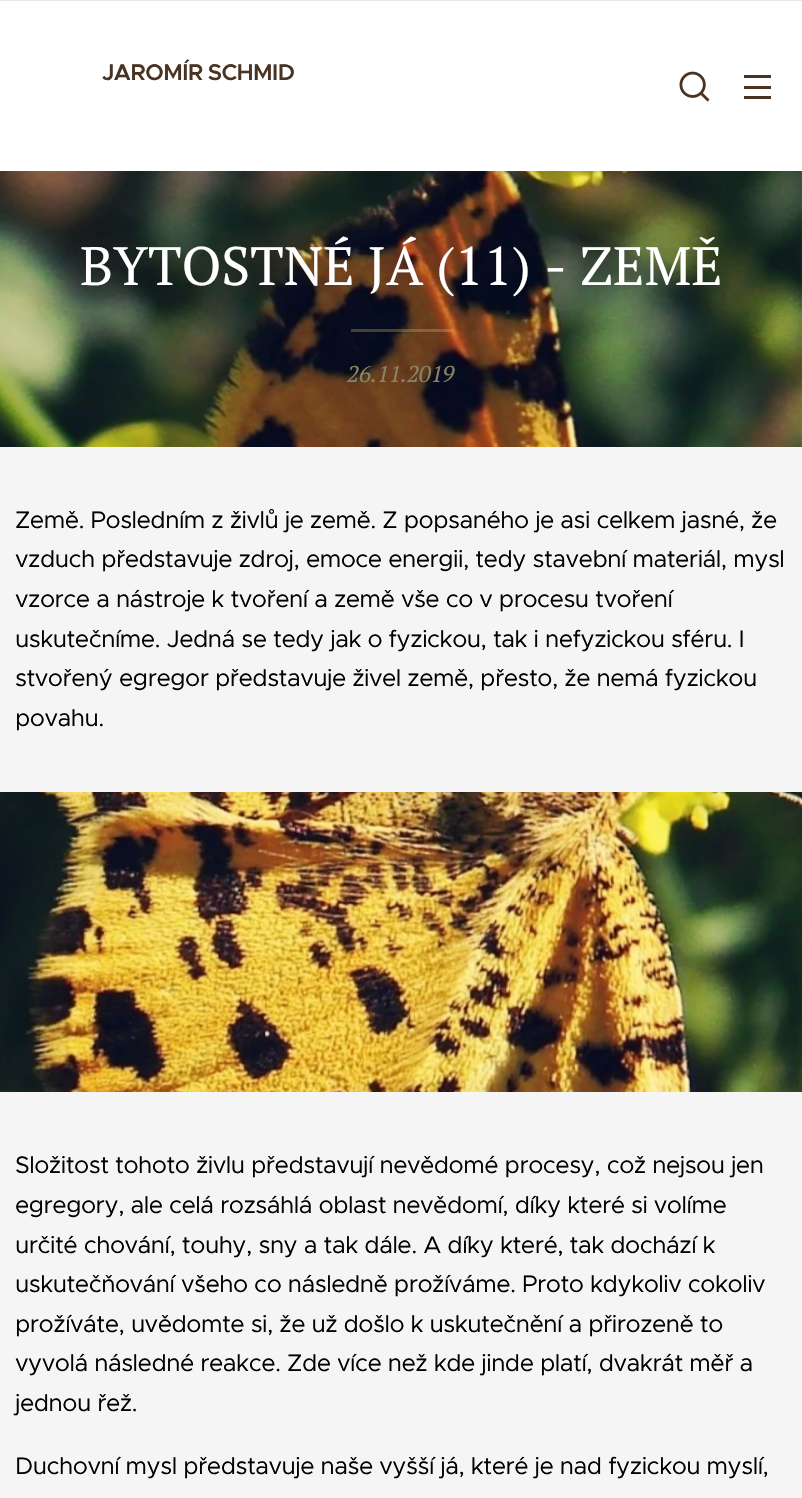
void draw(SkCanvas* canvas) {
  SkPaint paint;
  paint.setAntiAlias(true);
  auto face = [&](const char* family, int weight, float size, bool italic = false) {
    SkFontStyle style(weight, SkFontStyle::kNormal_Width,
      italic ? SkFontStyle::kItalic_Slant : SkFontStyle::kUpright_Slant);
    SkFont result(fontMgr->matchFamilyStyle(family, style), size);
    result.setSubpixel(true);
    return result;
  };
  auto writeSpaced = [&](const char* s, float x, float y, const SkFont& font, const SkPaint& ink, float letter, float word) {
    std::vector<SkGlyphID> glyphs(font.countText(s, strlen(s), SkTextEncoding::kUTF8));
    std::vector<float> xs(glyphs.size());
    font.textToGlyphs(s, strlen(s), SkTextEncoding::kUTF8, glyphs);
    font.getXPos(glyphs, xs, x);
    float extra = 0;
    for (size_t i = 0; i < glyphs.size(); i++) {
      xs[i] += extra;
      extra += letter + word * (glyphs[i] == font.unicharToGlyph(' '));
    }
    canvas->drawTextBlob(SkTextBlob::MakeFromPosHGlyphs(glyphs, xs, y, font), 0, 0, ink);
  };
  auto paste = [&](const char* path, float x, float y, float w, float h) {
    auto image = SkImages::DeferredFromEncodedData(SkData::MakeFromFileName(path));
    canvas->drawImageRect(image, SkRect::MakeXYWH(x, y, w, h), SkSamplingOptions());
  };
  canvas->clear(0xffffffff);
  paint.setColor(0xffe8e8e8);
  canvas->drawRect(SkRect::MakeXYWH(0, 0, 802, 1), paint);
  paste("img/1.png", 679, 71, 31, 31);
  {
    const struct { float x, y, w, h; SkColor color; } items[] = {
      {744, 86, 27, 3, 0xff493323},
      {744, 75, 27, 3, 0xff493323},
      {744, 96, 27, 3, 0xff493323},
    };
    for (auto [x, y, w, h, color] : items) {
      paint.setColor(color);
      canvas->drawRect(SkRect::MakeXYWH(x, y, w, h), paint);
    }
  }
  paste("img/2.png", 0, 171, 802, 276);
  paint.setColor(0x4dd9b569);
  canvas->drawRect(SkRect::MakeXYWH(351, 329, 102, 3), paint);
  paint.setColor(0xfff5f5f5);
  canvas->drawRect(SkRect::MakeXYWH(0, 447, 802, 345), paint);
  paste("img/3.png", 0, 792, 802, 300);
  canvas->drawRect(SkRect::MakeXYWH(0, 1092, 802, 406), paint);
  auto f0 = face("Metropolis", 600, 22.75f);
  paint.setColor(0xff493323);
  writeSpaced("JAROMÍR SCHMID", 102, 80, f0, paint, -0.48f, -1);
  auto f1 = face("PT Serif", 400, 54);
  paint.setColor(0xffffffff);
  canvas->drawString("BYTOSTNÉ JÁ (11) - ZEMĚ", 80, 285, f1, paint);
  auto f2 = face("PT Serif", 400, 22.75f, true);
  paint.setColor(0xff898467);
  canvas->drawString("26.11.2019", 347, 382, f2, paint);
  auto f3 = face("Metropolis", 400, 24);
  paint.setColor(0xff000000);
  {
    const struct { const char* s; float x, y; } items[] = {
      {"Země. Posledním z živlů je země. Z popsaného je asi celkem jasné, že", 15, 528},
      {"vzduch představuje zdroj, emoce energii, tedy stavební materiál, mysl", 15, 567},
      {"vzorce a nástroje k tvoření a země vše co v procesu tvoření", 15, 607},
      {"uskutečníme. Jedná se tedy jak o fyzickou, tak i nefyzickou sféru. I", 15, 647},
      {"stvořený egregor představuje živel země, přesto, že nemá fyzickou", 15, 686},
      {"povahu.", 15, 726},
      {"Složitost tohoto živlu představují nevědomé procesy, což nejsou jen", 15, 1173},
      {"egregory, ale celá rozsáhlá oblast nevědomí, díky které si volíme", 15, 1213},
      {"určité chování, touhy, sny a tak dále. A díky které, tak dochází k", 15, 1253},
      {"uskutečňování všeho co následně prožíváme. Proto kdykoliv cokoliv", 15, 1292},
      {"prožíváte, uvědomte si, že už došlo k uskutečnění a přirozeně to", 15, 1332},
      {"vyvolá následné reakce. Zde více než kde jinde platí, dvakrát měř a", 15, 1371},
      {"jednou řež.", 15, 1411},
      {"Duchovní mysl představuje naše vyšší já, které je nad fyzickou myslí,", 15, 1474},
    };
    for (auto [s, x, y] : items) {
      writeSpaced(s, x, y, f3, paint, -0.48f, 0);
    }
  }
}
